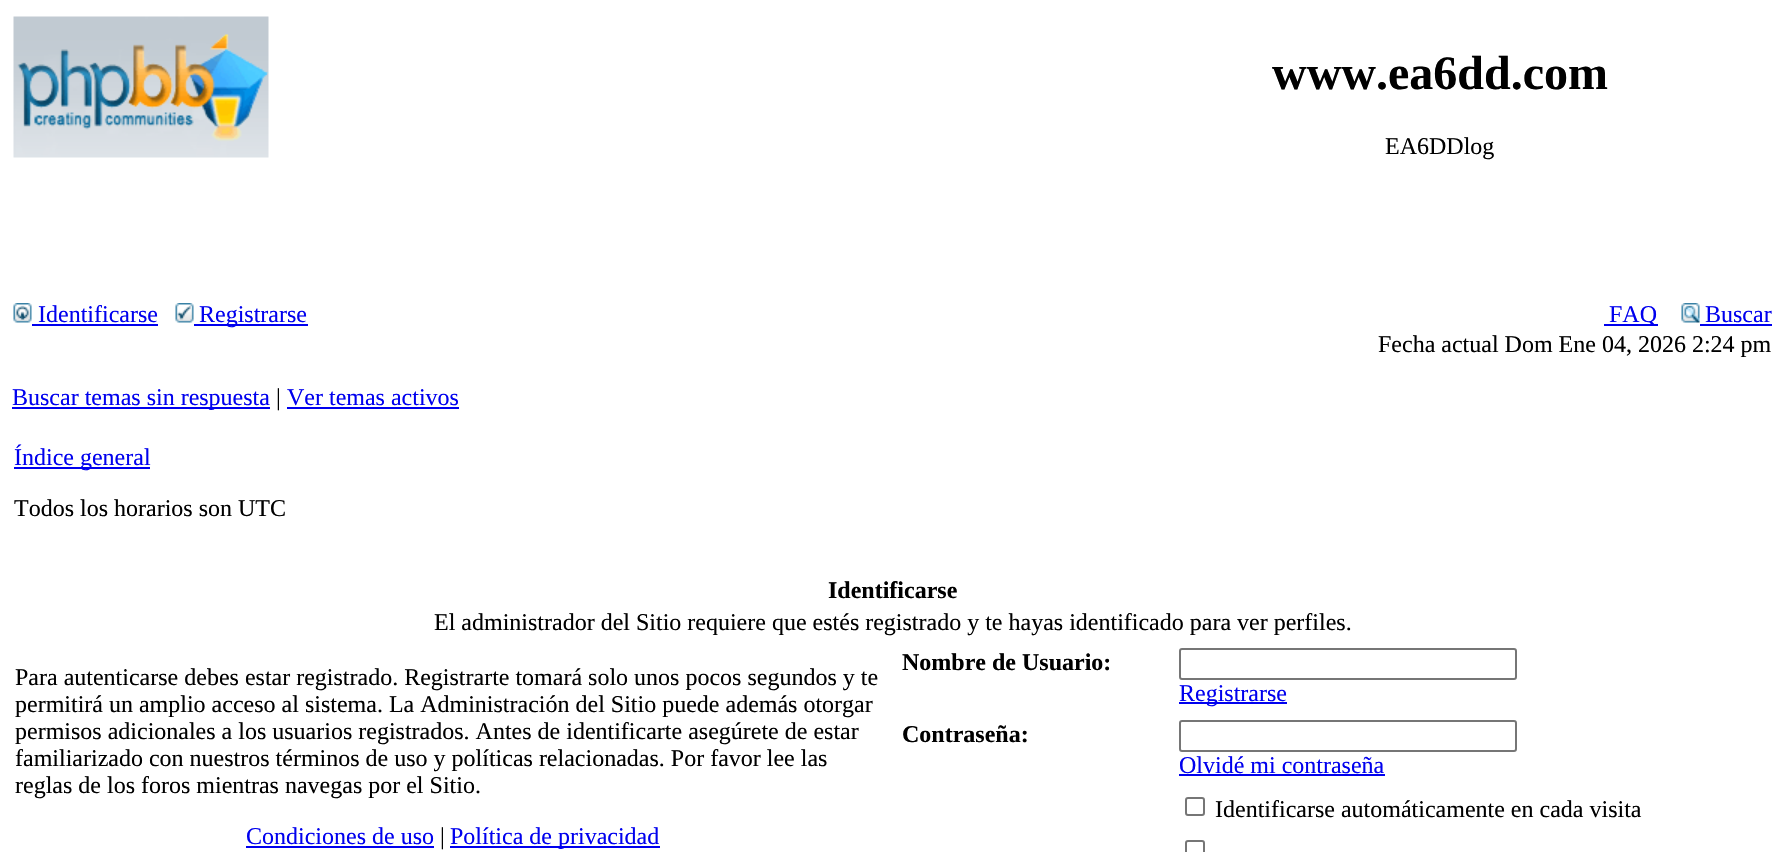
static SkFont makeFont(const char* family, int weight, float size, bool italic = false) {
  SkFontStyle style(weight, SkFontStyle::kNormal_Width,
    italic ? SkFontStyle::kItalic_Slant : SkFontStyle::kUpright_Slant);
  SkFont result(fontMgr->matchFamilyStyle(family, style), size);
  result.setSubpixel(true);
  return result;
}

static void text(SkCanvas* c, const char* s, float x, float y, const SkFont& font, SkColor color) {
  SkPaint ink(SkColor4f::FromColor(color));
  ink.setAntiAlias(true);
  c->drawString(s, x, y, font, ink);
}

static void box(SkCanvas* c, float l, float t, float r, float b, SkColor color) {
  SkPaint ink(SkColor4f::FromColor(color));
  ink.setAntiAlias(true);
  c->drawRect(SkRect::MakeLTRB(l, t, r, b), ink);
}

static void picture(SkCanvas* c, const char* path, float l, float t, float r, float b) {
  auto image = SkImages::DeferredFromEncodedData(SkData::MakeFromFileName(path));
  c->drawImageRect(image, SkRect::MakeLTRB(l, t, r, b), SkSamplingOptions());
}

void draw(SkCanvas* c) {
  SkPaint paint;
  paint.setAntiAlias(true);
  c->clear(0xffffffff);
  picture(c, "img_01.png", 13, 16, 269, 158);
  SkFont face1 = makeFont("Liberation Serif", 700, 48);
  text(c, "www.ea6dd.com", 1272, 89, face1, 0xff000000);
  SkFont face2 = makeFont("Liberation Serif", 400, 24);
  text(c, "EA6DDlog", 1385, 154, face2, 0xff000000);
  picture(c, "img_02.png", 13, 303, 32, 323);
  text(c, "Identificarse", 38, 322, face2, 0xff0000ee);
  box(c, 32, 324, 158, 326, 0xff0000ee);
  picture(c, "img_03.png", 175, 303, 194, 323);
  box(c, 194, 324, 308, 326, 0xff0000ee);
  text(c, "Registrarse", 199, 322, face2, 0xff0000ee);
  box(c, 1604, 324, 1658, 326, 0xff0000ee);
  text(c, "FAQ", 1609, 322, face2, 0xff0000ee);
  picture(c, "img_04.png", 1681, 303, 1700, 323);
  text(c, "Buscar", 1705, 322, face2, 0xff0000ee);
  box(c, 1700, 324, 1772, 326, 0xff0000ee);
  text(c, "Fecha actual Dom Ene 04, 2026 2:24 pm", 1378, 352, face2, 0xff000000);
  box(c, 12, 407, 270, 409, 0xff0000ee);
  text(c, "Buscar temas sin respuesta", 12, 405, face2, 0xff0000ee);
  text(c, "|", 276, 405, face2, 0xff000000);
  text(c, "Ver temas activos", 287, 405, face2, 0xff0000ee);
  box(c, 287, 407, 459, 409, 0xff0000ee);
  box(c, 14, 467, 150, 469, 0xff0000ee);
  text(c, "Índice general", 14, 465, face2, 0xff0000ee);
  text(c, "Todos los horarios son UTC", 14, 516, face2, 0xff000000);
  SkFont face3 = makeFont("Liberation Serif", 700, 24);
  text(c, "Identificarse", 828, 598, face3, 0xff000000);
  text(c, "El administrador del Sitio requiere que estés registrado y te hayas identificado para ver perfiles.", 434, 630, face2, 0xff000000);
  text(c, "Para autenticarse debes estar registrado. Registrarte tomará solo unos pocos segundos y te", 15, 685, face2, 0xff000000);
  text(c, "permitirá un amplio acceso al sistema. La Administración del Sitio puede además otorgar", 15, 712, face2, 0xff000000);
  text(c, "permisos adicionales a los usuarios registrados. Antes de identificarte asegúrete de estar", 15, 739, face2, 0xff000000);
  text(c, "familiarizado con nuestros términos de uso y políticas relacionadas. Por favor lee las", 15, 766, face2, 0xff000000);
  text(c, "reglas de los foros mientras navegas por el Sitio.", 15, 793, face2, 0xff000000);
  text(c, "Condiciones de uso", 246, 844, face2, 0xff0000ee);
  box(c, 246, 846, 434, 848, 0xff0000ee);
  text(c, "|", 440, 844, face2, 0xff000000);
  box(c, 450, 846, 660, 848, 0xff0000ee);
  text(c, "Política de privacidad", 450, 844, face2, 0xff0000ee);
  text(c, "Nombre de Usuario:", 902, 670, face3, 0xff000000);
  paint.setStyle(SkPaint::kStroke_Style);
  paint.setStrokeWidth(2);
  paint.setColor(0xff767676);
  c->drawRoundRect(SkRect::MakeLTRB(1180, 649, 1516, 679), 2, 2, paint);
  box(c, 1179, 702, 1287, 704, 0xff0000ee);
  text(c, "Registrarse", 1179, 701, face2, 0xff0000ee);
  text(c, "Contraseña:", 902, 742, face3, 0xff000000);
  c->drawRoundRect(SkRect::MakeLTRB(1180, 721, 1516, 751), 2, 2, paint);
  text(c, "Olvidé mi contraseña", 1179, 773, face2, 0xff0000ee);
  box(c, 1179, 774, 1385, 776, 0xff0000ee);
  c->drawRoundRect(SkRect::MakeLTRB(1186, 798, 1204, 815), 2, 2, paint);
  text(c, "Identificarse automáticamente en cada visita", 1215, 817, face2, 0xff000000);
  c->drawRoundRect(SkRect::MakeLTRB(1186, 841, 1204, 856), 2, 2, paint);
}
